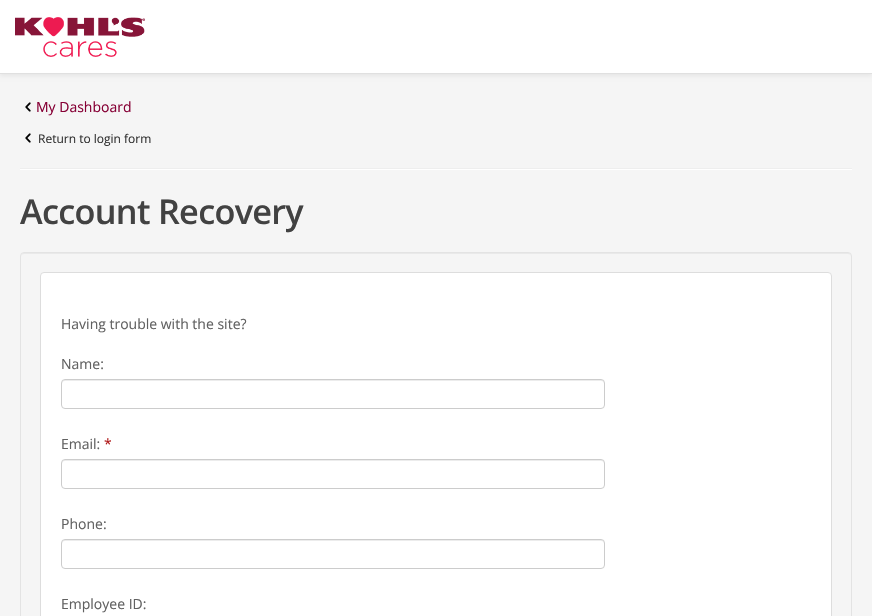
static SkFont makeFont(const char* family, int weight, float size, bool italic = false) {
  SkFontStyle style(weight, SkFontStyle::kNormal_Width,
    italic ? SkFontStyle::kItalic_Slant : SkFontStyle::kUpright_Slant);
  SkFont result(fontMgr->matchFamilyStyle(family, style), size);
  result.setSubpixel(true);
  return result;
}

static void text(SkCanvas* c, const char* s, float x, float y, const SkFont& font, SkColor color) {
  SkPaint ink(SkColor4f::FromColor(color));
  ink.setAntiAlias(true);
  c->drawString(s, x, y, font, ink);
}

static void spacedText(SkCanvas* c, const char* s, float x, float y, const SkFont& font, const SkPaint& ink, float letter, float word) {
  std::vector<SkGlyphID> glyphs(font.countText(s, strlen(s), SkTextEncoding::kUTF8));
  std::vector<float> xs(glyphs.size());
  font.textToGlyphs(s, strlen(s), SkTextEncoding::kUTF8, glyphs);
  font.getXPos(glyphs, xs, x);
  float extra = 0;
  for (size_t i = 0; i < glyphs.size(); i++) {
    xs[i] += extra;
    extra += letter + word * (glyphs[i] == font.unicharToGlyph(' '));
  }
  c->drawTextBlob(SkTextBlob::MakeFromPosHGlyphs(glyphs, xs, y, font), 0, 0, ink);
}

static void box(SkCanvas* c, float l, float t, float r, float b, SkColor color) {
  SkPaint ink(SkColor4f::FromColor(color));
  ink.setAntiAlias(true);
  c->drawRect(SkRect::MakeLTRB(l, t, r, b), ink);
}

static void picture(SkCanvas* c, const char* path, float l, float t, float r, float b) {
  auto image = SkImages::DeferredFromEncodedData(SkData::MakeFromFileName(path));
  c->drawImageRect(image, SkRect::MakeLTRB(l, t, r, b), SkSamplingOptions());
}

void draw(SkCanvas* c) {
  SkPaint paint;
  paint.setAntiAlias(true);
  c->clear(0xfff5f5f5);
  paint.setColor(0x0f000000);
  paint.setMaskFilter(SkMaskFilter::MakeBlur(kNormal_SkBlurStyle, 2));
  c->drawRect(SkRect::MakeLTRB(0, 2, 872, 76), paint);
  paint.setMaskFilter(nullptr);
  box(c, 0, 0, 872, 73, 0xffffffff);
  box(c, 0, 73, 872, 74, 0xffe0e0e0);
  picture(c, "img_01.png", 15, 17, 145, 57);
  picture(c, "img_02.png", 25, 102, 31, 112);
  SkFont face1 = makeFont("Open Sans", 400, 14);
  text(c, "My Dashboard", 36, 112, face1, 0xff860035);
  picture(c, "img_02.png", 25, 133, 31, 143);
  SkFont face2 = makeFont("Open Sans", 400, 12);
  text(c, "Return to login form", 38, 143, face2, 0xff333333);
  box(c, 20, 168, 852, 169, 0xffeeeeee);
  box(c, 20, 169, 852, 170, 0xffffffff);
  SkFont face3 = makeFont("Open Sans", 600, 34.25f);
  paint.setColor(0xff424242);
  spacedText(c, "Account Recovery", 20, 224, face3, paint, -0.7f, 0);
  paint.setColor(0xffe9e9e9);
  c->drawPath(SkPathBuilder().moveTo(24, 254).lineTo(848, 254).cubicTo(850, 254, 851, 255, 851, 257).cubicTo(851, 255, 850, 253, 848, 253).lineTo(24, 253).cubicTo(22, 253, 21, 255, 21, 257).cubicTo(21, 255, 22, 254, 24, 254).close().detach(), paint);
  paint.setStyle(SkPaint::kStroke_Style);
  paint.setStrokeWidth(1);
  paint.setColor(0xffe3e3e3);
  c->drawRoundRect(SkRect::MakeLTRB(20.5f, 252.5f, 851.5f, 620.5f), 3.5f, 3.5f, paint);
  paint.setStyle(SkPaint::kFill_Style);
  paint.setColor(0xffffffff);
  c->drawRoundRect(SkRect::MakeLTRB(40.5f, 272.5f, 831.5f, 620.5f), 3.5f, 3.5f, paint);
  paint.setStyle(SkPaint::kStroke_Style);
  paint.setColor(0xffdddddd);
  c->drawRoundRect(SkRect::MakeLTRB(40.5f, 272.5f, 831.5f, 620.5f), 3.5f, 3.5f, paint);
  text(c, "Having trouble with the site?", 61, 329, face1, 0xff616161);
  text(c, "Name:", 61, 369, face1, 0xff616161);
  paint.setStyle(SkPaint::kFill_Style);
  paint.setColor(0xffececec);
  c->drawPath(SkPathBuilder().moveTo(65, 381).lineTo(601, 381).cubicTo(603, 381, 604, 382, 604, 384).lineTo(604, 383).cubicTo(604, 381, 603, 380, 601, 380).lineTo(65, 380).cubicTo(63, 380, 62, 381, 62, 383).lineTo(62, 384).cubicTo(62, 382, 63, 381, 65, 381).close().detach(), paint);
  paint.setStyle(SkPaint::kStroke_Style);
  paint.setColor(0xffcccccc);
  c->drawRoundRect(SkRect::MakeLTRB(61.5f, 379.5f, 604.5f, 408.5f), 3.5f, 3.5f, paint);
  text(c, "Email:", 61, 449, face1, 0xff616161);
  text(c, "*", 104, 449, face1, 0xffb01919);
  paint.setStyle(SkPaint::kFill_Style);
  paint.setColor(0xffececec);
  c->drawPath(SkPathBuilder().moveTo(65, 461).lineTo(601, 461).cubicTo(603, 461, 604, 462, 604, 464).lineTo(604, 463).cubicTo(604, 461, 603, 460, 601, 460).lineTo(65, 460).cubicTo(63, 460, 62, 461, 62, 463).lineTo(62, 464).cubicTo(62, 462, 63, 461, 65, 461).close().detach(), paint);
  paint.setStyle(SkPaint::kStroke_Style);
  paint.setColor(0xffcccccc);
  c->drawRoundRect(SkRect::MakeLTRB(61.5f, 459.5f, 604.5f, 488.5f), 3.5f, 3.5f, paint);
  text(c, "Phone:", 61, 529, face1, 0xff616161);
  paint.setStyle(SkPaint::kFill_Style);
  paint.setColor(0xffececec);
  c->drawPath(SkPathBuilder().moveTo(65, 541).lineTo(601, 541).cubicTo(603, 541, 604, 542, 604, 544).lineTo(604, 543).cubicTo(604, 541, 603, 540, 601, 540).lineTo(65, 540).cubicTo(63, 540, 62, 541, 62, 543).lineTo(62, 544).cubicTo(62, 542, 63, 541, 65, 541).close().detach(), paint);
  paint.setStyle(SkPaint::kStroke_Style);
  paint.setColor(0xffcccccc);
  c->drawRoundRect(SkRect::MakeLTRB(61.5f, 539.5f, 604.5f, 568.5f), 3.5f, 3.5f, paint);
  text(c, "Employee ID:", 61, 609, face1, 0xff616161);
}
